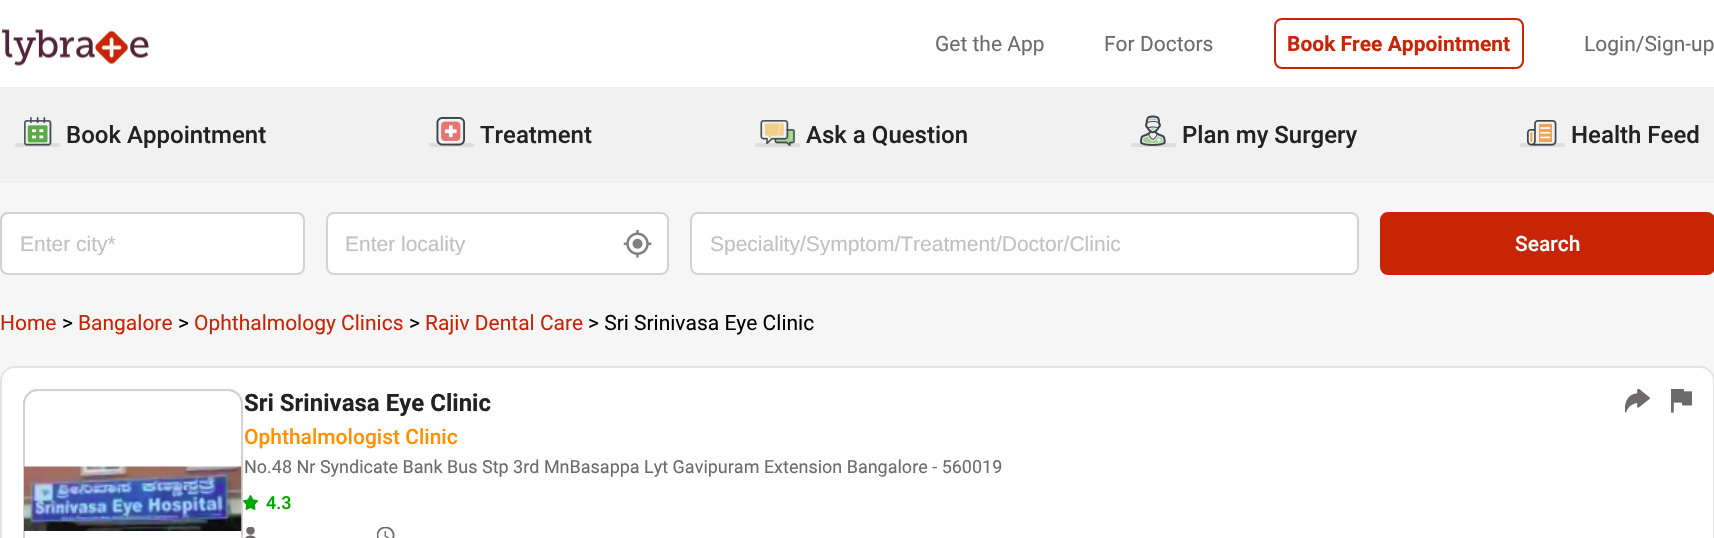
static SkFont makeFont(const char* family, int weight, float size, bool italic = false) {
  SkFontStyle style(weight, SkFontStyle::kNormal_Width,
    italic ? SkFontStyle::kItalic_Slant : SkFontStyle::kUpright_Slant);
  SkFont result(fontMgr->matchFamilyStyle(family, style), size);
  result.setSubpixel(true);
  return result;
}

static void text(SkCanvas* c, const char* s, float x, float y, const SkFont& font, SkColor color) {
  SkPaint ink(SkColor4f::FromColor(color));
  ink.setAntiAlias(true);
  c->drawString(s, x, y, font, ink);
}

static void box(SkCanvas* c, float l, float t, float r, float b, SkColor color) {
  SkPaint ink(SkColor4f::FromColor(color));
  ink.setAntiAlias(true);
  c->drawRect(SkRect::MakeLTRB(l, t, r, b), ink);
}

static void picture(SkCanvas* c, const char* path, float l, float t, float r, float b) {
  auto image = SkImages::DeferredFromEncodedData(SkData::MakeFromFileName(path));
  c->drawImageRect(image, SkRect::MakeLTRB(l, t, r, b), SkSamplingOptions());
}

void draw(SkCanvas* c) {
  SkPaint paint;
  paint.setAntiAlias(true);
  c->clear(0xffeeeeee);
  box(c, 0, 0, 1714, 87, 0xffffffff);
  picture(c, "img_01.png", 2, 29, 149, 66);
  SkFont face1 = makeFont("Roboto", 400, 21);
  text(c, "Get the App", 935, 51, face1, 0xff6c6a6a);
  text(c, "For Doctors", 1104, 51, face1, 0xff6c6a6a);
  paint.setStyle(SkPaint::kStroke_Style);
  paint.setStrokeWidth(2);
  paint.setColor(0xffc82506);
  c->drawRoundRect(SkRect::MakeLTRB(1275, 19, 1523, 68), 7, 7, paint);
  SkFont face2 = makeFont("Roboto", 700, 21);
  text(c, "Book Free Appointment", 1287, 51, face2, 0xffc82506);
  text(c, "Login/Sign-up", 1584, 51, face1, 0xff6c6a6a);
  box(c, 0, 87, 1714, 182, 0xfff1f1f1);
  picture(c, "img_02.png", 15, 117, 60, 147);
  SkFont face3 = makeFont("Roboto", 500, 24);
  text(c, "Book Appointment", 66, 143, face3, 0xff222222);
  picture(c, "img_03.png", 429, 117, 474, 147);
  text(c, "Treatment", 480, 143, face3, 0xff222222);
  picture(c, "img_04.png", 755, 120, 800, 147);
  text(c, "Ask a Question", 806, 143, face3, 0xff222222);
  picture(c, "img_05.png", 1131, 115, 1176, 147);
  text(c, "Plan my Surgery", 1182, 143, face3, 0xff222222);
  picture(c, "img_06.png", 1520, 120, 1565, 147);
  text(c, "Health Feed", 1571, 143, face3, 0xff222222);
  box(c, 0, 183, 1714, 381, 0xfff6f6f6);
  paint.setStyle(SkPaint::kFill_Style);
  paint.setColor(0xffffffff);
  c->drawRoundRect(SkRect::MakeLTRB(1, 213, 304, 274), 7, 7, paint);
  paint.setStyle(SkPaint::kStroke_Style);
  paint.setColor(0xffd3d3d3);
  c->drawRoundRect(SkRect::MakeLTRB(1, 213, 304, 274), 7, 7, paint);
  c->save();
  c->clipRect(SkRect::MakeLTRB(20, 233, 285, 255));
  SkFont face4 = makeFont("Liberation Sans", 400, 21);
  text(c, "Enter city*", 20, 251, face4, 0xffc1c1c1);
  c->restore();
  paint.setStyle(SkPaint::kFill_Style);
  paint.setColor(0xffffffff);
  c->drawRoundRect(SkRect::MakeLTRB(327, 213, 668, 274), 7, 7, paint);
  paint.setStyle(SkPaint::kStroke_Style);
  paint.setColor(0xffd3d3d3);
  c->drawRoundRect(SkRect::MakeLTRB(327, 213, 668, 274), 7, 7, paint);
  c->save();
  c->clipRect(SkRect::MakeLTRB(345, 233, 650, 255));
  text(c, "Enter locality", 345, 251, face4, 0xffc1c1c1);
  c->restore();
  picture(c, "img_07.png", 623, 230, 652, 258);
  paint.setStyle(SkPaint::kFill_Style);
  paint.setColor(0xffffffff);
  c->drawRoundRect(SkRect::MakeLTRB(691, 213, 1358, 274), 7, 7, paint);
  paint.setStyle(SkPaint::kStroke_Style);
  paint.setColor(0xffd3d3d3);
  c->drawRoundRect(SkRect::MakeLTRB(691, 213, 1358, 274), 7, 7, paint);
  c->save();
  c->clipRect(SkRect::MakeLTRB(710, 233, 1340, 255));
  text(c, "Speciality/Symptom/Treatment/Doctor/Clinic", 710, 251, face4, 0xffc1c1c1);
  c->restore();
  paint.setStyle(SkPaint::kFill_Style);
  paint.setColor(0xffc82506);
  c->drawRoundRect(SkRect::MakeLTRB(1381, 213, 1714, 274), 7, 7, paint);
  paint.setStyle(SkPaint::kStroke_Style);
  c->drawRoundRect(SkRect::MakeLTRB(1381, 213, 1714, 274), 7, 7, paint);
  SkFont face5 = makeFont("Roboto", 500, 21);
  text(c, "Search", 1515, 251, face5, 0xffffffff);
  text(c, "Home", 0, 330, face1, 0xffc82506);
  text(c, ">", 62, 330, face1, 0xff000000);
  text(c, "Bangalore", 78, 330, face1, 0xffc82506);
  text(c, ">", 178, 330, face1, 0xff000000);
  text(c, "Ophthalmology Clinics", 194, 330, face1, 0xffc82506);
  text(c, ">", 409, 330, face1, 0xff000000);
  text(c, "Rajiv Dental Care", 425, 330, face1, 0xffc82506);
  text(c, "> Sri Srinivasa Eye Clinic", 588, 330, face1, 0xff000000);
  paint.setStyle(SkPaint::kFill_Style);
  paint.setColor(0xffffffff);
  c->drawRoundRect(SkRect::MakeLTRB(1, 367, 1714, 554), 14, 14, paint);
  paint.setStyle(SkPaint::kStroke_Style);
  paint.setColor(0xffe3e3e3);
  c->drawRoundRect(SkRect::MakeLTRB(1, 367, 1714, 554), 14, 14, paint);
  paint.setColor(0xffd3d3d3);
  c->drawRoundRect(SkRect::MakeLTRB(24, 390, 242, 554), 14, 14, paint);
  c->drawRoundRect(SkRect::MakeLTRB(24, 390, 242, 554), 14, 14, paint);
  picture(c, "img_08.png", 24, 466, 242, 531);
  SkFont face6 = makeFont("Roboto", 700, 24);
  text(c, "Sri Srinivasa Eye Clinic", 244, 411, face6, 0xff222222);
  text(c, "Ophthalmologist Clinic", 244, 444, face5, 0xffff9000);
  SkFont face7 = makeFont("Roboto", 400, 18);
  text(c, "No.48 Nr Syndicate Bank Bus Stp 3rd MnBasappa Lyt Gavipuram Extension Bangalore - 560019", 244, 473, face7, 0xff6c6a6a);
  picture(c, "img_09.png", 243, 495, 258, 510);
  SkFont face8 = makeFont("Roboto", 500, 18);
  text(c, "4.3", 266, 509, face8, 0xff00a600);
  picture(c, "img_10.png", 245, 527, 256, 538);
  picture(c, "img_11.png", 377, 527, 395, 538);
  picture(c, "img_12.png", 1625, 389, 1650, 413);
  picture(c, "img_13.png", 1671, 389, 1692, 413);
}
